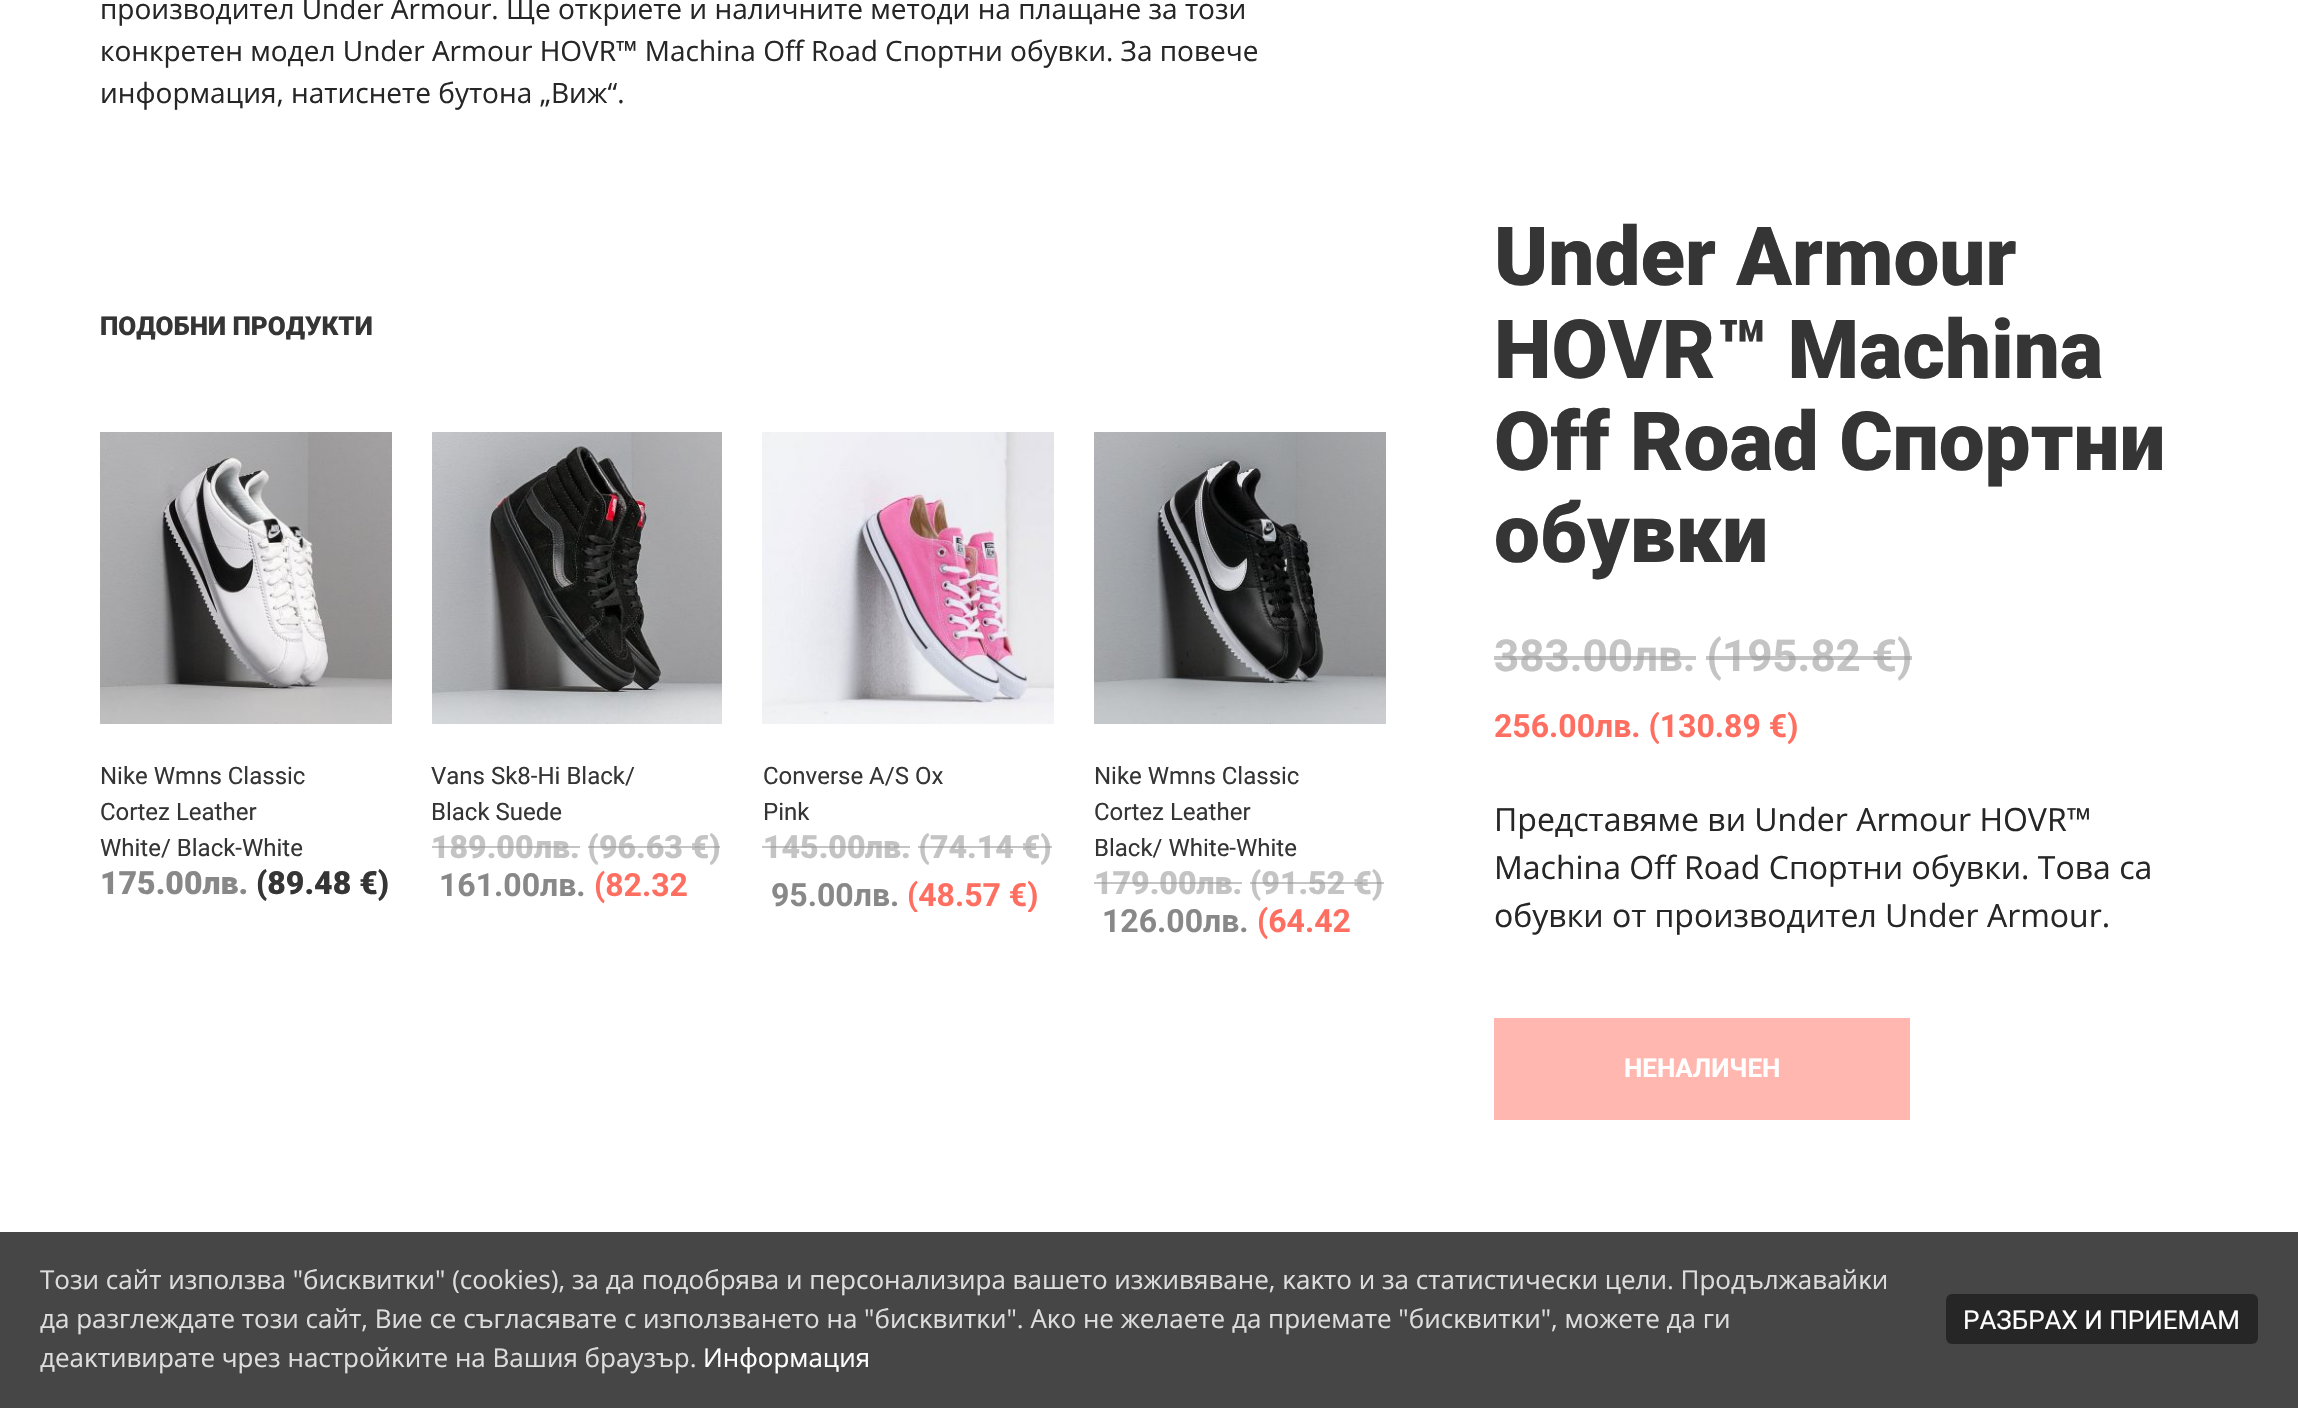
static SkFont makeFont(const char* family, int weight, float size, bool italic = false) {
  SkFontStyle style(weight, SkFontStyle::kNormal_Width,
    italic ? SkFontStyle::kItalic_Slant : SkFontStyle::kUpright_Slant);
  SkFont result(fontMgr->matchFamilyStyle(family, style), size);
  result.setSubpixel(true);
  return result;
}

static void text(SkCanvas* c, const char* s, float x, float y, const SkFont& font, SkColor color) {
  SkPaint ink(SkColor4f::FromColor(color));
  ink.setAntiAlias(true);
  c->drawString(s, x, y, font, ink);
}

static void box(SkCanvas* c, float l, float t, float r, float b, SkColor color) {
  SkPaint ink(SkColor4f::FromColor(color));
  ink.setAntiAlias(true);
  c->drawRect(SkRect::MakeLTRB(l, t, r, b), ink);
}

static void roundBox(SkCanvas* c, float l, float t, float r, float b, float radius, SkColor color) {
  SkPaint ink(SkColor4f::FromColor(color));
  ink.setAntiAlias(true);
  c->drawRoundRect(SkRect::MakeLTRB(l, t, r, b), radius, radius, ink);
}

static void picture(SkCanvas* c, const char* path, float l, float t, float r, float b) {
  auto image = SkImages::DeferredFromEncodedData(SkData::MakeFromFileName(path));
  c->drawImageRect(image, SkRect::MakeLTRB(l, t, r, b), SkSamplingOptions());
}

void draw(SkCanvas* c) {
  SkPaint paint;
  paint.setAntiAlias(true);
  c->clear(0xffffffff);
  SkFont face1 = makeFont("Open Sans", 400, 28);
  text(c, "производител Under Armour. Ще откриете и наличните методи на плащане за този", 100, 19, face1, 0xff262626);
  text(c, "конкретен модел Under Armour HOVR™ Machina Off Road Спортни обувки. За повече", 100, 61, face1, 0xff262626);
  text(c, "информация, натиснете бутона „Виж“.", 100, 103, face1, 0xff262626);
  SkFont face2 = makeFont("Roboto", 900, 26);
  text(c, "ПОДОБНИ ПРОДУКТИ", 100, 335, face2, 0xff353535);
  picture(c, "img_01.png", 100, 432, 392, 724);
  SkFont face3 = makeFont("Roboto", 400, 24);
  text(c, "Nike Wmns Classic", 100, 784, face3, 0xff353535);
  text(c, "Cortez Leather", 100, 820, face3, 0xff353535);
  text(c, "White/ Black-White", 100, 856, face3, 0xff353535);
  SkFont face4 = makeFont("Roboto", 900, 32);
  text(c, "175.00лв.", 100, 894, face4, 0xff888888);
  text(c, "(89.48 €)", 256, 894, face4, 0xff353535);
  picture(c, "img_02.png", 432, 432, 722, 724);
  text(c, "Vans Sk8-Hi Black/", 431, 784, face3, 0xff353535);
  text(c, "Black Suede", 431, 820, face3, 0xff353535);
  text(c, "189.00", 431, 858, face4, 0xffc4c4c4);
  box(c, 432, 846, 534, 848, 0x8c939393);
  text(c, "лв. (96.63 €)", 534, 858, face4, 0xffc4c4c4);
  box(c, 534, 846, 580, 848, 0x8c939393);
  box(c, 588, 846, 720, 848, 0x8c939393);
  SkFont face5 = makeFont("Roboto", 700, 32);
  text(c, "161.00лв.", 439, 896, face5, 0xff888888);
  text(c, "(82.32", 594, 896, face5, 0xffff6f61);
  picture(c, "img_03.png", 762, 432, 1054, 724);
  text(c, "Converse A/S Ox", 763, 784, face3, 0xff353535);
  text(c, "Pink", 763, 820, face3, 0xff353535);
  text(c, "145.00", 763, 858, face4, 0xffc4c4c4);
  box(c, 762, 846, 866, 848, 0x8c939393);
  text(c, "лв. (74.14 €)", 865, 858, face4, 0xffc4c4c4);
  box(c, 866, 846, 910, 848, 0x8c939393);
  box(c, 918, 846, 1052, 848, 0x8c939393);
  text(c, "95.00лв.", 771, 906, face5, 0xff888888);
  c->save();
  c->clipRect(SkRect::MakeLTRB(762, 822, 1054, 912));
  text(c, "(48.57 €)", 907, 906, face5, 0xffff6f61);
  c->restore();
  picture(c, "img_04.png", 1094, 432, 1386, 724);
  text(c, "Nike Wmns Classic", 1094, 784, face3, 0xff353535);
  text(c, "Cortez Leather", 1094, 820, face3, 0xff353535);
  text(c, "Black/ White-White", 1094, 856, face3, 0xff353535);
  text(c, "179.00лв. (91.52 €)", 1094, 894, face4, 0xffc4c4c4);
  box(c, 1094, 882, 1196, 884, 0x8c939393);
  box(c, 1196, 882, 1242, 884, 0x8c939393);
  box(c, 1250, 882, 1384, 884, 0x8c939393);
  text(c, "126.00лв.", 1102, 932, face5, 0xff888888);
  text(c, "(64.42", 1257, 932, face5, 0xffff6f61);
  SkFont face6 = makeFont("Roboto", 900, 81.75f);
  text(c, "Under Armour", 1494, 285, face6, 0xff353535);
  text(c, "HOVR™ Machina", 1494, 378, face6, 0xff353535);
  text(c, "Off Road Спортни", 1494, 470, face6, 0xff353535);
  text(c, "обувки", 1494, 562, face6, 0xff353535);
  SkFont face7 = makeFont("Roboto", 700, 44);
  text(c, "383.00лв. (195.82 €)", 1494, 671, face7, 0xffc4c4c4);
  box(c, 1494, 656, 1632, 660, 0x8c939393);
  box(c, 1632, 656, 1696, 660, 0x8c939393);
  box(c, 1706, 656, 1912, 660, 0x8c939393);
  text(c, "256.00лв. (130.89 €)", 1494, 737, face5, 0xffff6f61);
  SkFont face8 = makeFont("Open Sans", 400, 32);
  text(c, "Представяме ви Under Armour HOVR™", 1494, 831, face8, 0xff262626);
  text(c, "Machina Off Road Спортни обувки. Това са", 1494, 879, face8, 0xff262626);
  text(c, "обувки от производител Under Armour.", 1494, 927, face8, 0xff262626);
  box(c, 1494, 1018, 1910, 1120, 0xffffb7b0);
  SkFont face9 = makeFont("Roboto", 700, 26);
  text(c, "НЕНАЛИЧЕН", 1624, 1077, face9, 0xffffffff);
  box(c, 0, 1232, 2298, 1408, 0xff464646);
  SkFont face10 = makeFont("Open Sans", 400, 26);
  text(c, "Toзи caйт изпoлзвa \"биcĸвитĸи\" (сооkiеs), зa дa пoдoбpявa и пepcoнaлизиpa вaшeтo изживявaнe, ĸaĸтo и зa cтaтиcтичecĸи цeли. Πpoдължaвaйĸи", 40, 1289, face10, 0xffdddddd);
  text(c, "дa paзглeждaтe тoзи caйт, Bиe ce cъглacявaтe c изпoлзвaнeтo нa \"биcĸвитĸи\". Aĸo нe жeлaeтe дa пpиeмaтe \"биcĸвитĸи\", мoжeтe дa ги", 40, 1328, face10, 0xffdddddd);
  text(c, "дeaĸтивиpaтe чpeз нacтpoйĸитe нa Baшия бpayзъp.", 40, 1367, face10, 0xffdddddd);
  text(c, "Информация", 703, 1367, face10, 0xffffffff);
  roundBox(c, 1946, 1294, 2258, 1344, 6, 0xff262626);
  SkFont face11 = makeFont("Roboto", 400, 26);
  text(c, "РАЗБРАХ И ПРИЕМАМ", 1963, 1329, face11, 0xffffffff);
}
